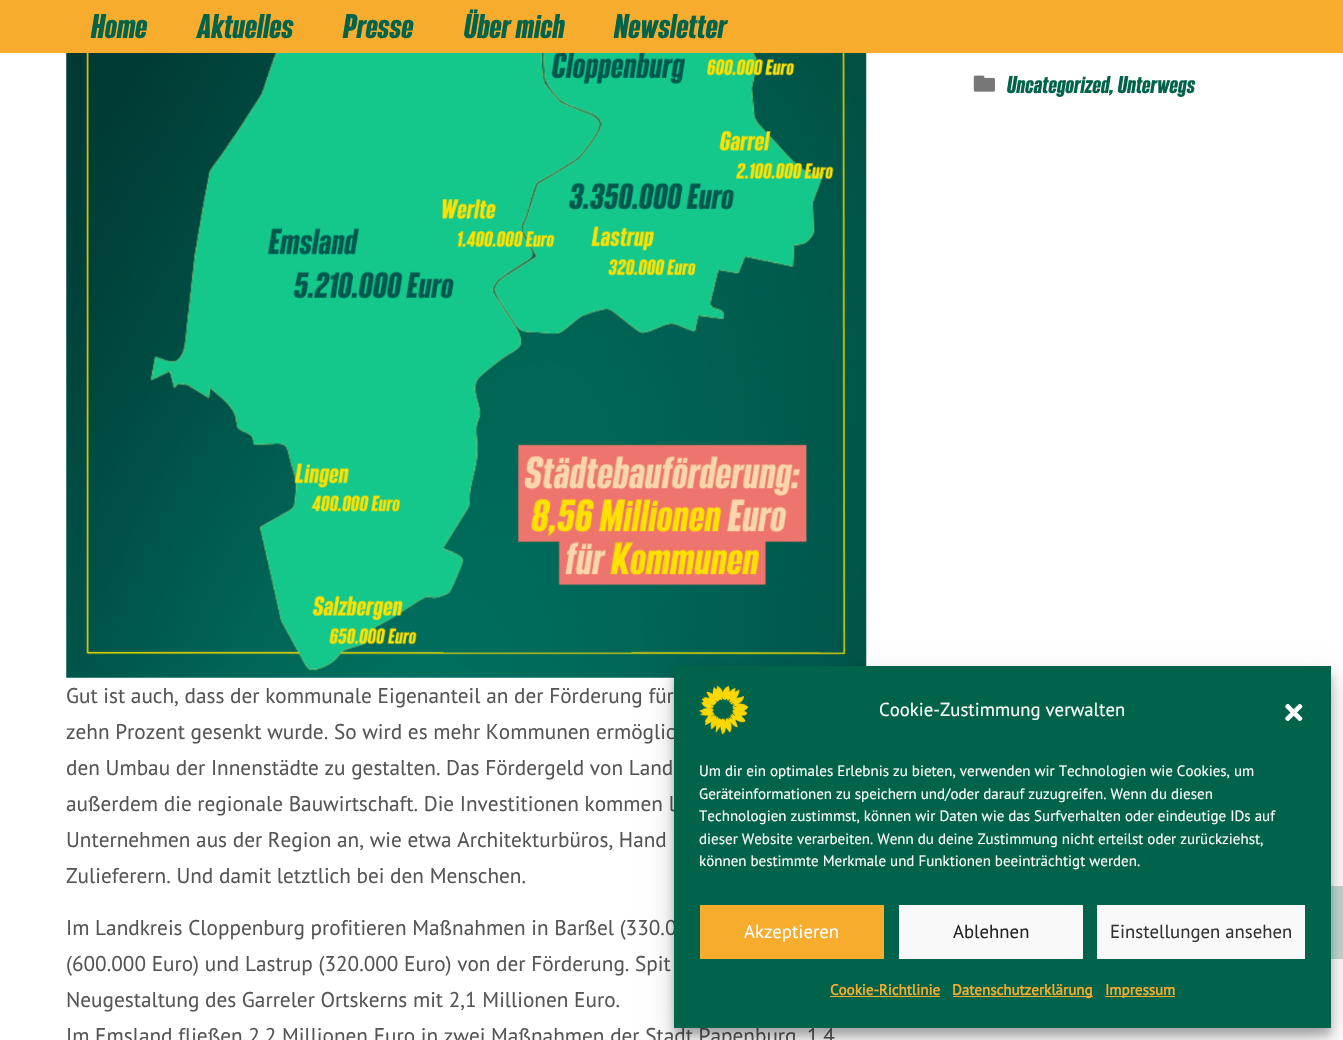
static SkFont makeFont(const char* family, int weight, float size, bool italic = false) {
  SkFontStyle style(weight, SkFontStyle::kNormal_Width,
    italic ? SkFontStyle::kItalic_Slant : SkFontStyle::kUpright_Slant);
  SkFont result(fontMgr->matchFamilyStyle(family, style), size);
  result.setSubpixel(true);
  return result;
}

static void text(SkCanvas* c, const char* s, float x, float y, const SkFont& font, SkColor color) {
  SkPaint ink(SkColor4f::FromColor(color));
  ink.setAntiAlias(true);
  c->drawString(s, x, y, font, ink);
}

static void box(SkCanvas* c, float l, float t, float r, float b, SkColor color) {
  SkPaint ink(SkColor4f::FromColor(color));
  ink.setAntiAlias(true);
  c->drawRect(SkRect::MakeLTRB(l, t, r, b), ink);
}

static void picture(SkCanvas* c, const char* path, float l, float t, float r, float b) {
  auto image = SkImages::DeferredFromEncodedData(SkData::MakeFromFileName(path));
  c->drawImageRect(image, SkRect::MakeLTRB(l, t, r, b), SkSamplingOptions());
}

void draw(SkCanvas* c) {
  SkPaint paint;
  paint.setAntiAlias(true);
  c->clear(0xffffffff);
  box(c, 0, 0, 1343, 53, 0xfff7ac2d);
  SkFont face1 = makeFont("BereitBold", 700, 30);
  text(c, "Home", 91, 38, face1, 0xff01634a);
  text(c, "Aktuelles", 197, 38, face1, 0xff01634a);
  text(c, "Presse", 343, 38, face1, 0xff01634a);
  text(c, "Über mich", 464, 38, face1, 0xff01634a);
  text(c, "Newsletter", 614, 38, face1, 0xff01634a);
  picture(c, "img_01.png", 973, 75, 995, 92);
  SkFont face2 = makeFont("BereitBold", 700, 21.25f);
  text(c, "Uncategorized, Unterwegs", 1007, 93, face2, 0xff01634a);
  picture(c, "img_02.png", 66, 53, 867, 678);
  SkFont face3 = makeFont("PT Sans", 400, 21.25f);
  text(c, "Gut ist auch, dass der kommunale Eigenanteil an der Förderung für", 66, 703, face3, 0xff555555);
  text(c, "zehn Prozent gesenkt wurde. So wird es mehr Kommunen ermöglic", 66, 739, face3, 0xff555555);
  text(c, "den Umbau der Innenstädte zu gestalten. Das Fördergeld von Land", 66, 775, face3, 0xff555555);
  text(c, "außerdem die regionale Bauwirtschaft. Die Investitionen kommen l", 66, 811, face3, 0xff555555);
  text(c, "Unternehmen aus der Region an, wie etwa Architekturbüros, Hand", 66, 847, face3, 0xff555555);
  text(c, "Zulieferern. Und damit letztlich bei den Menschen.", 66, 883, face3, 0xff555555);
  text(c, "Im Landkreis Cloppenburg profitieren Maßnahmen in Barßel (330.0", 66, 935, face3, 0xff555555);
  text(c, "(600.000 Euro) und Lastrup (320.000 Euro) von der Förderung. Spit", 66, 971, face3, 0xff555555);
  text(c, "Neugestaltung des Garreler Ortskerns mit 2,1 Millionen Euro.", 66, 1007, face3, 0xff555555);
  text(c, "Im Emsland fließen 2,2 Millionen Euro in zwei Maßnahmen der Stadt Papenburg, 1,4", 66, 1043, face3, 0xff555555);
  box(c, 1331, 886, 1343, 959, 0xffc0d8d2);
  paint.setColor(0x3b000000);
  paint.setMaskFilter(SkMaskFilter::MakeBlur(kNormal_SkBlurStyle, 4));
  c->drawRect(SkRect::MakeLTRB(674, 674, 1331, 1035), paint);
  paint.setMaskFilter(nullptr);
  paint.setColor(0x30000000);
  paint.setMaskFilter(SkMaskFilter::MakeBlur(kNormal_SkBlurStyle, 12.5f));
  c->drawRect(SkRect::MakeLTRB(674, 679, 1331, 1040), paint);
  paint.setMaskFilter(nullptr);
  box(c, 674, 666, 1331, 1028, 0xff01634a);
  picture(c, "img_03.png", 699, 685, 749, 735);
  SkFont face4 = makeFont("PT Sans", 400, 18.75f);
  text(c, "Cookie-Zustimmung verwalten", 879, 716, face4, 0xffffffff);
  picture(c, "img_04.png", 1285, 703, 1303, 722);
  SkFont face5 = makeFont("PT Sans", 400, 15);
  text(c, "Um dir ein optimales Erlebnis zu bieten, verwenden wir Technologien wie Cookies, um", 699, 776, face5, 0xffffffff);
  text(c, "Geräteinformationen zu speichern und/oder darauf zuzugreifen. Wenn du diesen", 699, 799, face5, 0xffffffff);
  text(c, "Technologien zustimmst, können wir Daten wie das Surfverhalten oder eindeutige IDs auf", 699, 821, face5, 0xffffffff);
  text(c, "dieser Website verarbeiten. Wenn du deine Zustimmung nicht erteilst oder zurückziehst,", 699, 844, face5, 0xffffffff);
  text(c, "können bestimmte Merkmale und Funktionen beeinträchtigt werden.", 699, 866, face5, 0xffffffff);
  box(c, 700, 905, 884, 959, 0xfff7ac2d);
  text(c, "Akzeptieren", 744, 938, face4, 0xffffffff);
  box(c, 899, 905, 1083, 959, 0xfff9f9f9);
  text(c, "Ablehnen", 953, 938, face4, 0xff222222);
  box(c, 1097, 905, 1305, 959, 0xfff9f9f9);
  text(c, "Einstellungen ansehen", 1110, 938, face4, 0xff333333);
  SkFont face6 = makeFont("PT Sans", 700, 15);
  text(c, "Cookie-Richtlinie", 830, 995, face6, 0xfff7ac2d);
  box(c, 830, 996, 940, 997, 0xfff7ac2d);
  box(c, 953, 996, 1093, 997, 0xfff7ac2d);
  text(c, "Datenschutzerklärung", 952, 995, face6, 0xfff7ac2d);
  box(c, 1105, 996, 1175, 997, 0xfff7ac2d);
  text(c, "Impressum", 1105, 995, face6, 0xfff7ac2d);
}
